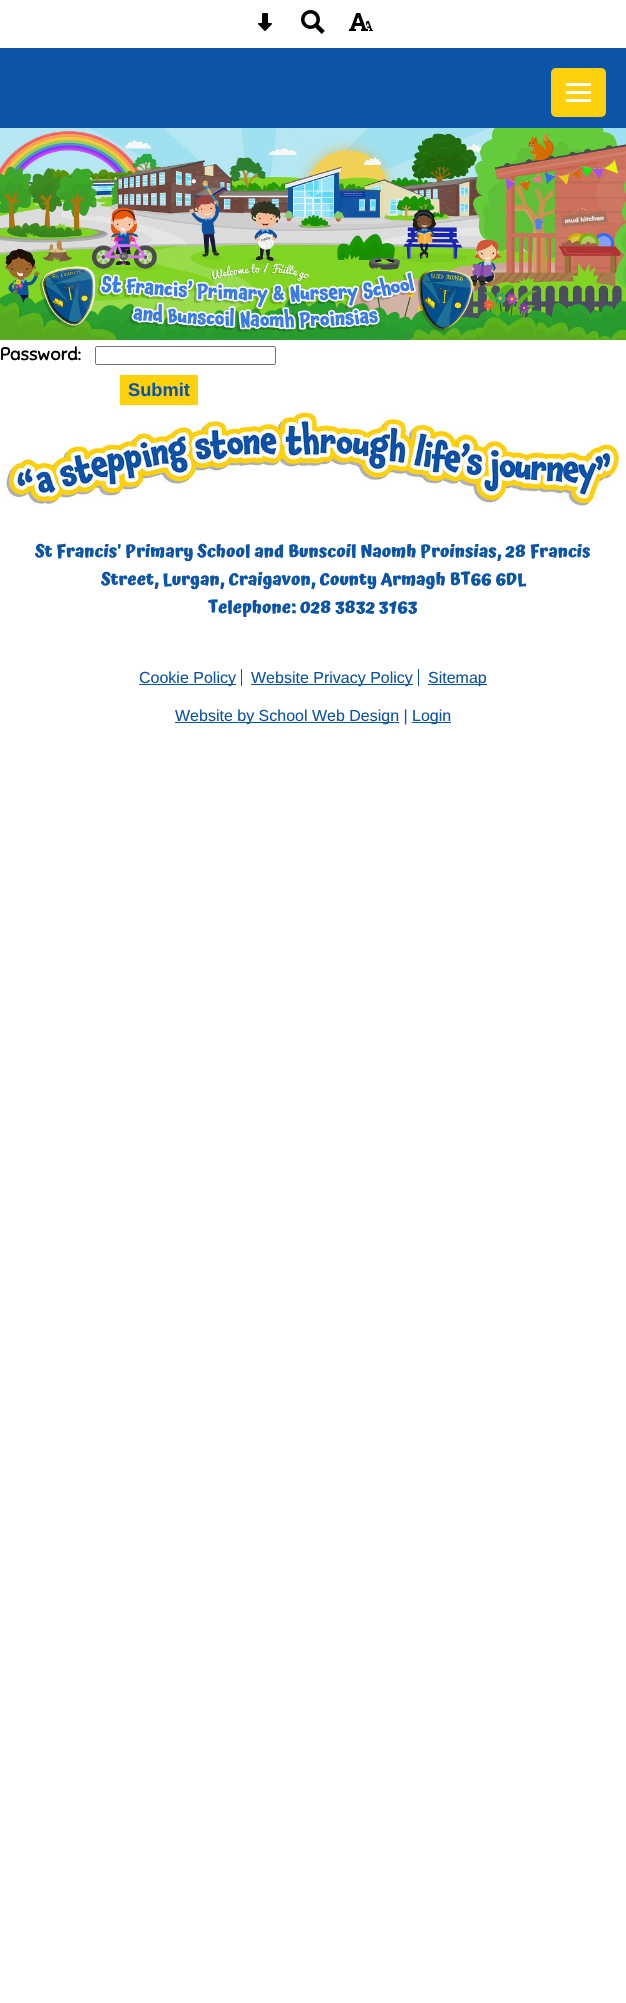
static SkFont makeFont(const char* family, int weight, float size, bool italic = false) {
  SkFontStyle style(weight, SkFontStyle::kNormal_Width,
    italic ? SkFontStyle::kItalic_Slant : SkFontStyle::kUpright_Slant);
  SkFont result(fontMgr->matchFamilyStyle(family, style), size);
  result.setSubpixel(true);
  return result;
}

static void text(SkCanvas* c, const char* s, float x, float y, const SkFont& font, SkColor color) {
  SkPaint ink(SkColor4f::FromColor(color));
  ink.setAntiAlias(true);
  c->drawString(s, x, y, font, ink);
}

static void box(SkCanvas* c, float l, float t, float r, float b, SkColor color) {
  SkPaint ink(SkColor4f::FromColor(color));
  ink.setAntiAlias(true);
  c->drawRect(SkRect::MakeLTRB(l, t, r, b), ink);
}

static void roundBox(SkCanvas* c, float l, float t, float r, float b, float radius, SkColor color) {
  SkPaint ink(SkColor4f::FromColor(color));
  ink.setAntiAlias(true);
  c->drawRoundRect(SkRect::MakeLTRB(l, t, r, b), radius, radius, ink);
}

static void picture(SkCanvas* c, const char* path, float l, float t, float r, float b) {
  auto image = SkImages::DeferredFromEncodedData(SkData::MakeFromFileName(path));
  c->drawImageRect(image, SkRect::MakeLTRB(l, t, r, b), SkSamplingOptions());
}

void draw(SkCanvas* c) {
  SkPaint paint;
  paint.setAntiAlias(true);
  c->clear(0xffffffff);
  picture(c, "img_01.png", 258, 13, 272, 31);
  picture(c, "img_02.png", 301, 10, 325, 34);
  picture(c, "img_03.png", 349, 13, 373, 31);
  box(c, 0, 48, 626, 128, 0xff0c54a8);
  roundBox(c, 551, 68, 606, 117, 5, 0xffffd10c);
  roundBox(c, 566, 83, 591, 86, 1.5f, 0xffffffff);
  roundBox(c, 566, 91, 591, 94, 1.5f, 0xffffffff);
  roundBox(c, 566, 99, 591, 102, 1.5f, 0xffffffff);
  picture(c, "img_04.png", 0, 128, 626, 340);
  SkFont face1 = makeFont("Sniglet", 400, 18.25f);
  text(c, "Password:", 0, 360, face1, 0xff000000);
  paint.setStyle(SkPaint::kStroke_Style);
  paint.setStrokeWidth(1);
  paint.setColor(0xff767676);
  c->drawRoundRect(SkRect::MakeLTRB(95.5f, 346.5f, 275.5f, 364.5f), 1.5f, 1.5f, paint);
  box(c, 120, 375, 198, 405, 0xffffd10c);
  SkFont face2 = makeFont("Liberation Sans", 700, 18.25f);
  text(c, "Submit", 128, 396, face2, 0xff0c54a8);
  picture(c, "img_05.png", 5, 410, 622, 508);
  SkFont face3 = makeFont("Atma", 700, 17.15f);
  text(c, "St Francis' Primary School and Bunscoil Naomh Proinsias, 28 Francis", 35, 557, face3, 0xff0c54a8);
  text(c, "Street, Lurgan, Craigavon, County Armagh BT66 6DL", 101, 585, face3, 0xff0c54a8);
  text(c, "Telephone: 028 3832 3163", 208, 613, face3, 0xff0c54a8);
  box(c, 139, 684, 236, 685, 0xff0c53a3);
  SkFont face4 = makeFont("Liberation Sans", 400, 16);
  text(c, "Cookie Policy", 139, 683, face4, 0xff0c54a8);
  box(c, 241, 669, 242, 686, 0xff0c53a3);
  box(c, 251, 684, 413, 685, 0xff0c53a3);
  text(c, "Website Privacy Policy", 251, 683, face4, 0xff0c54a8);
  box(c, 418, 669, 419, 686, 0xff0c53a3);
  box(c, 428, 684, 487, 685, 0xff0c53a3);
  text(c, "Sitemap", 428, 683, face4, 0xff0c54a8);
  box(c, 175, 722, 399, 723, 0xff0c53a3);
  text(c, "Website by School Web Design |", 175, 721, face4, 0xff0c54a8);
  box(c, 412, 722, 451, 723, 0xff0c53a3);
  text(c, "Login", 412, 721, face4, 0xff0c54a8);
}
